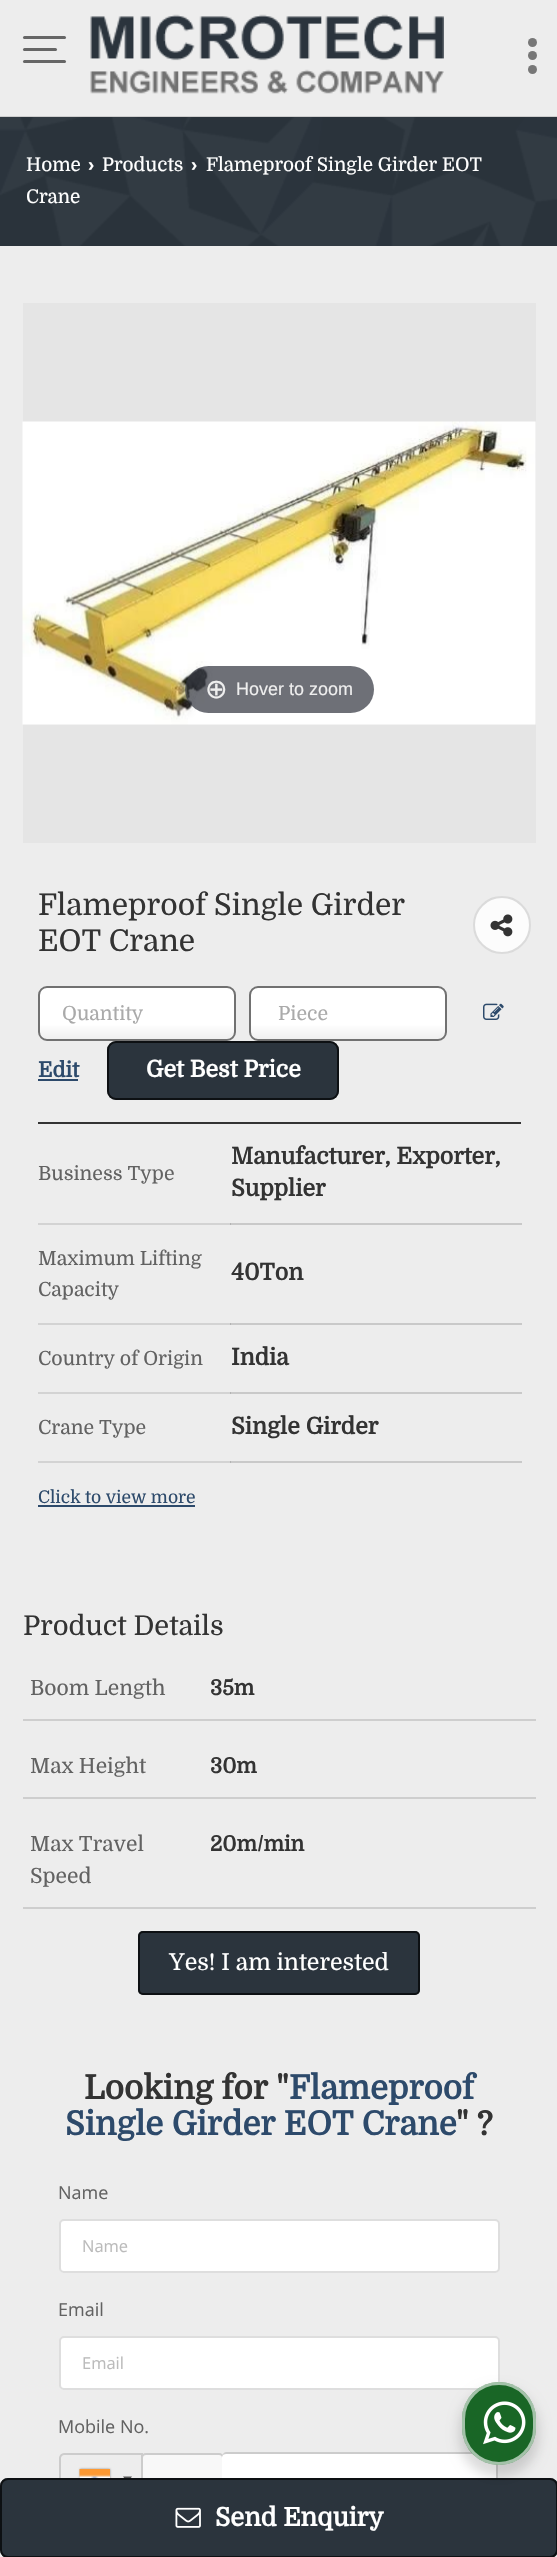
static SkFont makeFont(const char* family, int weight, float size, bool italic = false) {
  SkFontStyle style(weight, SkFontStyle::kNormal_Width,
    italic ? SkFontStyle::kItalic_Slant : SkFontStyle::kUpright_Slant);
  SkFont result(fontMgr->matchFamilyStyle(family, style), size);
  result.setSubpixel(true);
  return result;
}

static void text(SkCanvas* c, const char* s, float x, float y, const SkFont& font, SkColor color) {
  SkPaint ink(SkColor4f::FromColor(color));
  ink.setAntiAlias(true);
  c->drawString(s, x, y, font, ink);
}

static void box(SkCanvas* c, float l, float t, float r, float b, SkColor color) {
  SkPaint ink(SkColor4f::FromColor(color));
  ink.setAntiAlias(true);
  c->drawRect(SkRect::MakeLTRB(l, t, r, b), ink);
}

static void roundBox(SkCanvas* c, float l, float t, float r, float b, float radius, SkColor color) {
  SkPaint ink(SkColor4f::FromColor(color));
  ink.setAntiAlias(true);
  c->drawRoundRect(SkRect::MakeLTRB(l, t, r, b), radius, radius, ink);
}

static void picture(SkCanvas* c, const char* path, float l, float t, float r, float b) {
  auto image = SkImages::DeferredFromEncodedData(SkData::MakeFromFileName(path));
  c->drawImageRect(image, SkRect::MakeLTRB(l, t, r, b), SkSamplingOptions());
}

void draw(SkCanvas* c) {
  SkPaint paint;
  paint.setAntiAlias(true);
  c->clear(0xffededed);
  box(c, 38, 1461, 231, 1463, 0xffd3d3d3);
  box(c, 38, 1392, 231, 1394, 0xffd3d3d3);
  box(c, 38, 1323, 231, 1325, 0xffd3d3d3);
  box(c, 38, 1223, 231, 1225, 0xffd3d3d3);
  box(c, 0, 116, 557, 117, 0xffcecece);
  roundBox(c, 23, 36, 66, 39, 1.5f, 0xff666666);
  roundBox(c, 23, 48, 57, 51, 1.5f, 0xff666666);
  roundBox(c, 23, 60, 66, 63, 1.5f, 0xff666666);
  picture(c, "img_01.png", 90, 14, 444, 94);
  paint.setColor(0xff777777);
  c->drawCircle(532.5f, 55.5f, 4.5f, paint);
  c->drawCircle(532.5f, 42.5f, 4.5f, paint);
  c->drawCircle(532.5f, 69.5f, 4.5f, paint);
  box(c, 0, 117, 557, 246, 0xff2b343d);
  picture(c, "img_02.png", 0, 117, 557, 246);
  SkFont face1 = makeFont("Domine", 400, 18.9f);
  text(c, "Home", 26, 171, face1, 0xffffffff);
  SkFont face2 = makeFont("Liberation Sans", 700, 18.9f);
  text(c, "›", 88, 171, face2, 0xffffffff);
  text(c, "Products", 102, 171, face1, 0xffffffff);
  text(c, "›", 191, 171, face2, 0xffffffff);
  text(c, "Flameproof Single Girder EOT", 206, 171, face1, 0xffffffff);
  text(c, "Crane", 26, 203, face1, 0xffffffff);
  box(c, 23, 303, 536, 843, 0xffe5e5e5);
  picture(c, "img_03.png", 22, 421, 536, 725);
  roundBox(c, 185, 666, 374, 713, 23.5f, 0xb331333d);
  SkFont face3 = makeFont("DejaVu Sans", 400, 27);
  text(c, "⊕", 205, 698, face3, 0xffeeeeee);
  SkFont face4 = makeFont("Liberation Sans", 400, 18);
  text(c, "Hover to zoom", 236, 695, face4, 0xffeeeeee);
  SkFont face5 = makeFont("Domine", 400, 30);
  text(c, "Flameproof Single Girder", 38, 915, face5, 0xff333333);
  text(c, "EOT Crane", 38, 951, face5, 0xff333333);
  paint.setColor(0xfffcfcfc);
  c->drawCircle(502, 925, 29, paint);
  paint.setStyle(SkPaint::kStroke_Style);
  paint.setStrokeWidth(2);
  paint.setColor(0x21000000);
  c->drawCircle(502, 925, 28, paint);
  picture(c, "img_04.png", 490, 914, 513, 937);
  c->save();
  c->clipPath(SkPathBuilder().moveTo(47, 986).lineTo(227, 986).cubicTo(232, 986, 236, 990, 236, 995).lineTo(236, 1032).cubicTo(236, 1037, 232, 1041, 227, 1041).lineTo(47, 1041).cubicTo(42, 1041, 38, 1037, 38, 1032).lineTo(38, 995).cubicTo(38, 990, 42, 986, 47, 986).close().detach(), true);
  paint.setStyle(SkPaint::kFill_Style);
  {
    const SkColor colors[] = {0xffffffff, 0xffeeeeee};
    const float stops[] = {0.7f, 1};
    const SkPoint ends[] = {{137, 987}, {137, 1040}};
    paint.setShader(SkGradientShader::MakeLinear(ends, colors, stops, 2, SkTileMode::kClamp));
    paint.setAlpha(255);
  }
  c->drawRect(SkRect::MakeLTRB(38, 987, 236, 1040), paint);
  c->restore();
  paint.setStyle(SkPaint::kStroke_Style);
  paint.setShader(nullptr);
  paint.setColor(0xff717171);
  c->drawRoundRect(SkRect::MakeLTRB(39, 987, 235, 1040), 8, 8, paint);
  SkFont face6 = makeFont("Domine", 400, 19.5f);
  text(c, "Quantity", 62, 1020, face6, 0xffaaaaaa);
  c->save();
  c->clipPath(SkPathBuilder().moveTo(258, 986).lineTo(438, 986).cubicTo(443, 986, 447, 990, 447, 995).lineTo(447, 1032).cubicTo(447, 1037, 443, 1041, 438, 1041).lineTo(258, 1041).cubicTo(253, 1041, 249, 1037, 249, 1032).lineTo(249, 995).cubicTo(249, 990, 253, 986, 258, 986).close().detach(), true);
  paint.setStyle(SkPaint::kFill_Style);
  {
    const SkColor colors[] = {0xffffffff, 0xffeeeeee};
    const float stops[] = {0.7f, 1};
    const SkPoint ends[] = {{348, 987}, {348, 1040}};
    paint.setShader(SkGradientShader::MakeLinear(ends, colors, stops, 2, SkTileMode::kClamp));
    paint.setAlpha(255);
  }
  c->drawRect(SkRect::MakeLTRB(249, 987, 447, 1040), paint);
  c->restore();
  paint.setStyle(SkPaint::kStroke_Style);
  paint.setShader(nullptr);
  paint.setColor(0xff717171);
  c->drawRoundRect(SkRect::MakeLTRB(250, 987, 446, 1040), 8, 8, paint);
  text(c, "Piece", 278, 1020, face6, 0xffaaaaaa);
  picture(c, "img_05.png", 483, 1003, 504, 1020);
  SkFont face7 = makeFont("Domine", 700, 21);
  text(c, "Edit", 38, 1077, face7, 0xff2d4a6b);
  box(c, 38, 1079, 78, 1081, 0xff2d4a6b);
  roundBox(c, 107, 1041, 339, 1100, 9, 0xff2b343d);
  paint.setColor(0xb3000000);
  c->drawRoundRect(SkRect::MakeLTRB(108, 1042, 338, 1099), 8, 8, paint);
  SkFont face8 = makeFont("Domine", 700, 23.1f);
  text(c, "Get Best Price", 146, 1077, face8, 0xffffffff);
  box(c, 38, 1122, 521, 1124, 0xff333333);
  text(c, "Business Type", 38, 1180, face6, 0xff626262);
  box(c, 230, 1223, 522, 1225, 0xffc9c9c9);
  box(c, 230, 1223, 231, 1225, 0xffb3b3b3);
  text(c, "Manufacturer, Exporter,", 231, 1164, face8, 0xff333333);
  text(c, "Supplier", 231, 1196, face8, 0xff333333);
  text(c, "Maximum Lifting", 38, 1265, face6, 0xff626262);
  text(c, "Capacity", 38, 1296, face6, 0xff626262);
  box(c, 230, 1323, 522, 1325, 0xffc9c9c9);
  box(c, 230, 1323, 231, 1325, 0xffb3b3b3);
  text(c, "40Ton", 231, 1280, face8, 0xff333333);
  text(c, "Country of Origin", 38, 1365, face6, 0xff626262);
  box(c, 230, 1392, 522, 1394, 0xffc9c9c9);
  box(c, 230, 1392, 231, 1394, 0xffb3b3b3);
  text(c, "India", 231, 1365, face8, 0xff333333);
  text(c, "Crane Type", 38, 1434, face6, 0xff626262);
  box(c, 230, 1461, 522, 1463, 0xffc9c9c9);
  box(c, 230, 1461, 231, 1463, 0xffb3b3b3);
  text(c, "Single Girder", 231, 1434, face8, 0xff333333);
  SkFont face9 = makeFont("Domine", 400, 17.5f);
  text(c, "Click to view more", 38, 1503, face9, 0xff2d4a6b);
  box(c, 38, 1505, 195, 1507, 0xff2d4a6b);
  paint.setColor(0xffcccccc);
  c->drawPath(SkPathBuilder().moveTo(64, 2454).lineTo(142, 2454).lineTo(142, 2506).lineTo(64, 2506).cubicTo(62, 2506, 60, 2504, 60, 2502).lineTo(60, 2458).cubicTo(60, 2456, 62, 2454, 64, 2454).close().detach(), paint);
  paint.setStyle(SkPaint::kFill_Style);
  paint.setColor(0xff888888);
  paint.setMaskFilter(SkMaskFilter::MakeBlur(kNormal_SkBlurStyle, 1));
  c->drawRect(SkRect::MakeLTRB(80, 2469, 110, 2490), paint);
  paint.setMaskFilter(nullptr);
  paint.setColor(0xff555555);
  c->drawPath(SkPathBuilder().moveTo(123, 2476.5f).lineTo(132, 2476.5f).lineTo(127.5f, 2482.5f).close().detach(), paint);
  paint.setColor(0xfff8f8f8);
  c->drawRoundRect(SkRect::MakeLTRB(142, 2454, 223, 2506), 4, 4, paint);
  paint.setStyle(SkPaint::kStroke_Style);
  paint.setColor(0xffcccccc);
  c->drawRoundRect(SkRect::MakeLTRB(142, 2454, 223, 2506), 4, 4, paint);
  paint.setStyle(SkPaint::kFill_Style);
  paint.setColor(0xffffffff);
  c->drawPath(SkPathBuilder().moveTo(226, 2454).lineTo(494, 2454).cubicTo(495, 2454, 496, 2455, 496, 2457).lineTo(496, 2502).cubicTo(496, 2504, 495, 2505, 494, 2505).lineTo(226, 2505).cubicTo(224, 2505, 222, 2504, 222, 2502).lineTo(222, 2457).cubicTo(222, 2455, 224, 2454, 226, 2454).close().detach(), paint);
  paint.setColor(0xffcccccc);
  c->drawPath(SkPathBuilder(SkPathFillType::kEvenOdd).moveTo(226, 2452).lineTo(494, 2452).cubicTo(496, 2452, 498, 2455, 498, 2457).lineTo(498, 2502).cubicTo(498, 2504, 496, 2506, 494, 2506).lineTo(226, 2506).cubicTo(224, 2506, 222, 2504, 222, 2502).lineTo(222, 2457).cubicTo(222, 2455, 224, 2452, 226, 2452).close().moveTo(226, 2454).lineTo(494, 2454).cubicTo(495, 2454, 496, 2455, 496, 2457).lineTo(496, 2502).cubicTo(496, 2504, 495, 2505, 494, 2505).lineTo(226, 2505).cubicTo(224, 2505, 222, 2504, 222, 2502).lineTo(222, 2457).cubicTo(222, 2455, 224, 2454, 226, 2454).close().detach(), paint);
  roundBox(c, 0, 2478, 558, 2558, 8, 0xff2b343d);
  paint.setStyle(SkPaint::kStroke_Style);
  paint.setColor(0xb3000000);
  c->drawRoundRect(SkRect::MakeLTRB(1, 2479, 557, 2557), 7, 7, paint);
  picture(c, "img_06.png", 175, 2507, 201, 2528);
  SkFont face10 = makeFont("Domine", 700, 25.5f);
  text(c, "Send Enquiry", 215, 2526, face10, 0xffffffff);
  SkFont face11 = makeFont("Domine", 400, 27.25f);
  text(c, "Product Details", 23, 1635, face11, 0xff333333);
  box(c, 23, 1719, 536, 1721, 0xffcecece);
  SkFont face12 = makeFont("Domine", 400, 21);
  text(c, "Boom Length", 30, 1695, face12, 0xff626262);
  text(c, "35m", 210, 1695, face7, 0xff333333);
  box(c, 23, 1797, 536, 1799, 0xffcecece);
  text(c, "Max Height", 30, 1773, face12, 0xff626262);
  text(c, "30m", 210, 1773, face7, 0xff333333);
  box(c, 23, 1907, 536, 1909, 0xffcecece);
  text(c, "Max Travel", 30, 1851, face12, 0xff626262);
  text(c, "Speed", 30, 1883, face12, 0xff626262);
  text(c, "20m/min", 210, 1851, face7, 0xff333333);
  roundBox(c, 138, 1931, 420, 1995, 5, 0xff2b343d);
  c->drawRoundRect(SkRect::MakeLTRB(139, 1932, 419, 1994), 4, 4, paint);
  SkFont face13 = makeFont("Domine", 400, 23.1f);
  text(c, "Yes! I am interested", 169, 1970, face13, 0xffffffff);
  SkFont face14 = makeFont("Domine", 700, 33);
  text(c, "Looking for \"", 84, 2099, face14, 0xff333333);
  text(c, "Flameproof", 289, 2099, face14, 0xff2d4a6b);
  text(c, "Single Girder EOT Crane", 65, 2135, face14, 0xff2d4a6b);
  text(c, "\" ?", 456, 2135, face14, 0xff333333);
  SkFont face15 = makeFont("Open Sans", 400, 18);
  text(c, "Name", 58, 2199, face15, 0xff626262);
  roundBox(c, 59, 2219, 500, 2273, 5, 0xffffffff);
  paint.setColor(0x21000000);
  c->drawRoundRect(SkRect::MakeLTRB(60, 2220, 499, 2272), 4, 4, paint);
  SkFont face16 = makeFont("Open Sans", 400, 16.5f);
  text(c, "Name", 82, 2252, face16, 0xffbbbbbb);
  text(c, "Email", 58, 2316, face15, 0xff626262);
  roundBox(c, 59, 2336, 500, 2390, 5, 0xffffffff);
  c->drawRoundRect(SkRect::MakeLTRB(60, 2337, 499, 2389), 4, 4, paint);
  text(c, "Email", 82, 2369, face16, 0xffbbbbbb);
  text(c, "Mobile No.", 58, 2433, face15, 0xff626262);
  picture(c, "img_07.png", 79, 2469, 110, 2478);
  paint.setStyle(SkPaint::kFill_Style);
  paint.setColor(0x24000000);
  paint.setMaskFilter(SkMaskFilter::MakeBlur(kNormal_SkBlurStyle, 6));
  c->drawRoundRect(SkRect::MakeLTRB(459, 2388, 539, 2477), 40, 40, paint);
  paint.setMaskFilter(nullptr);
  roundBox(c, 462, 2382, 536, 2465, 37, 0xff196626);
  paint.setStyle(SkPaint::kStroke_Style);
  paint.setStrokeWidth(3);
  paint.setColor(0x99ffffff);
  c->drawRoundRect(SkRect::MakeLTRB(463.5f, 2383.5f, 534.5f, 2463.5f), 35.5f, 35.5f, paint);
  picture(c, "img_08.png", 483, 2401, 526, 2445);
}
